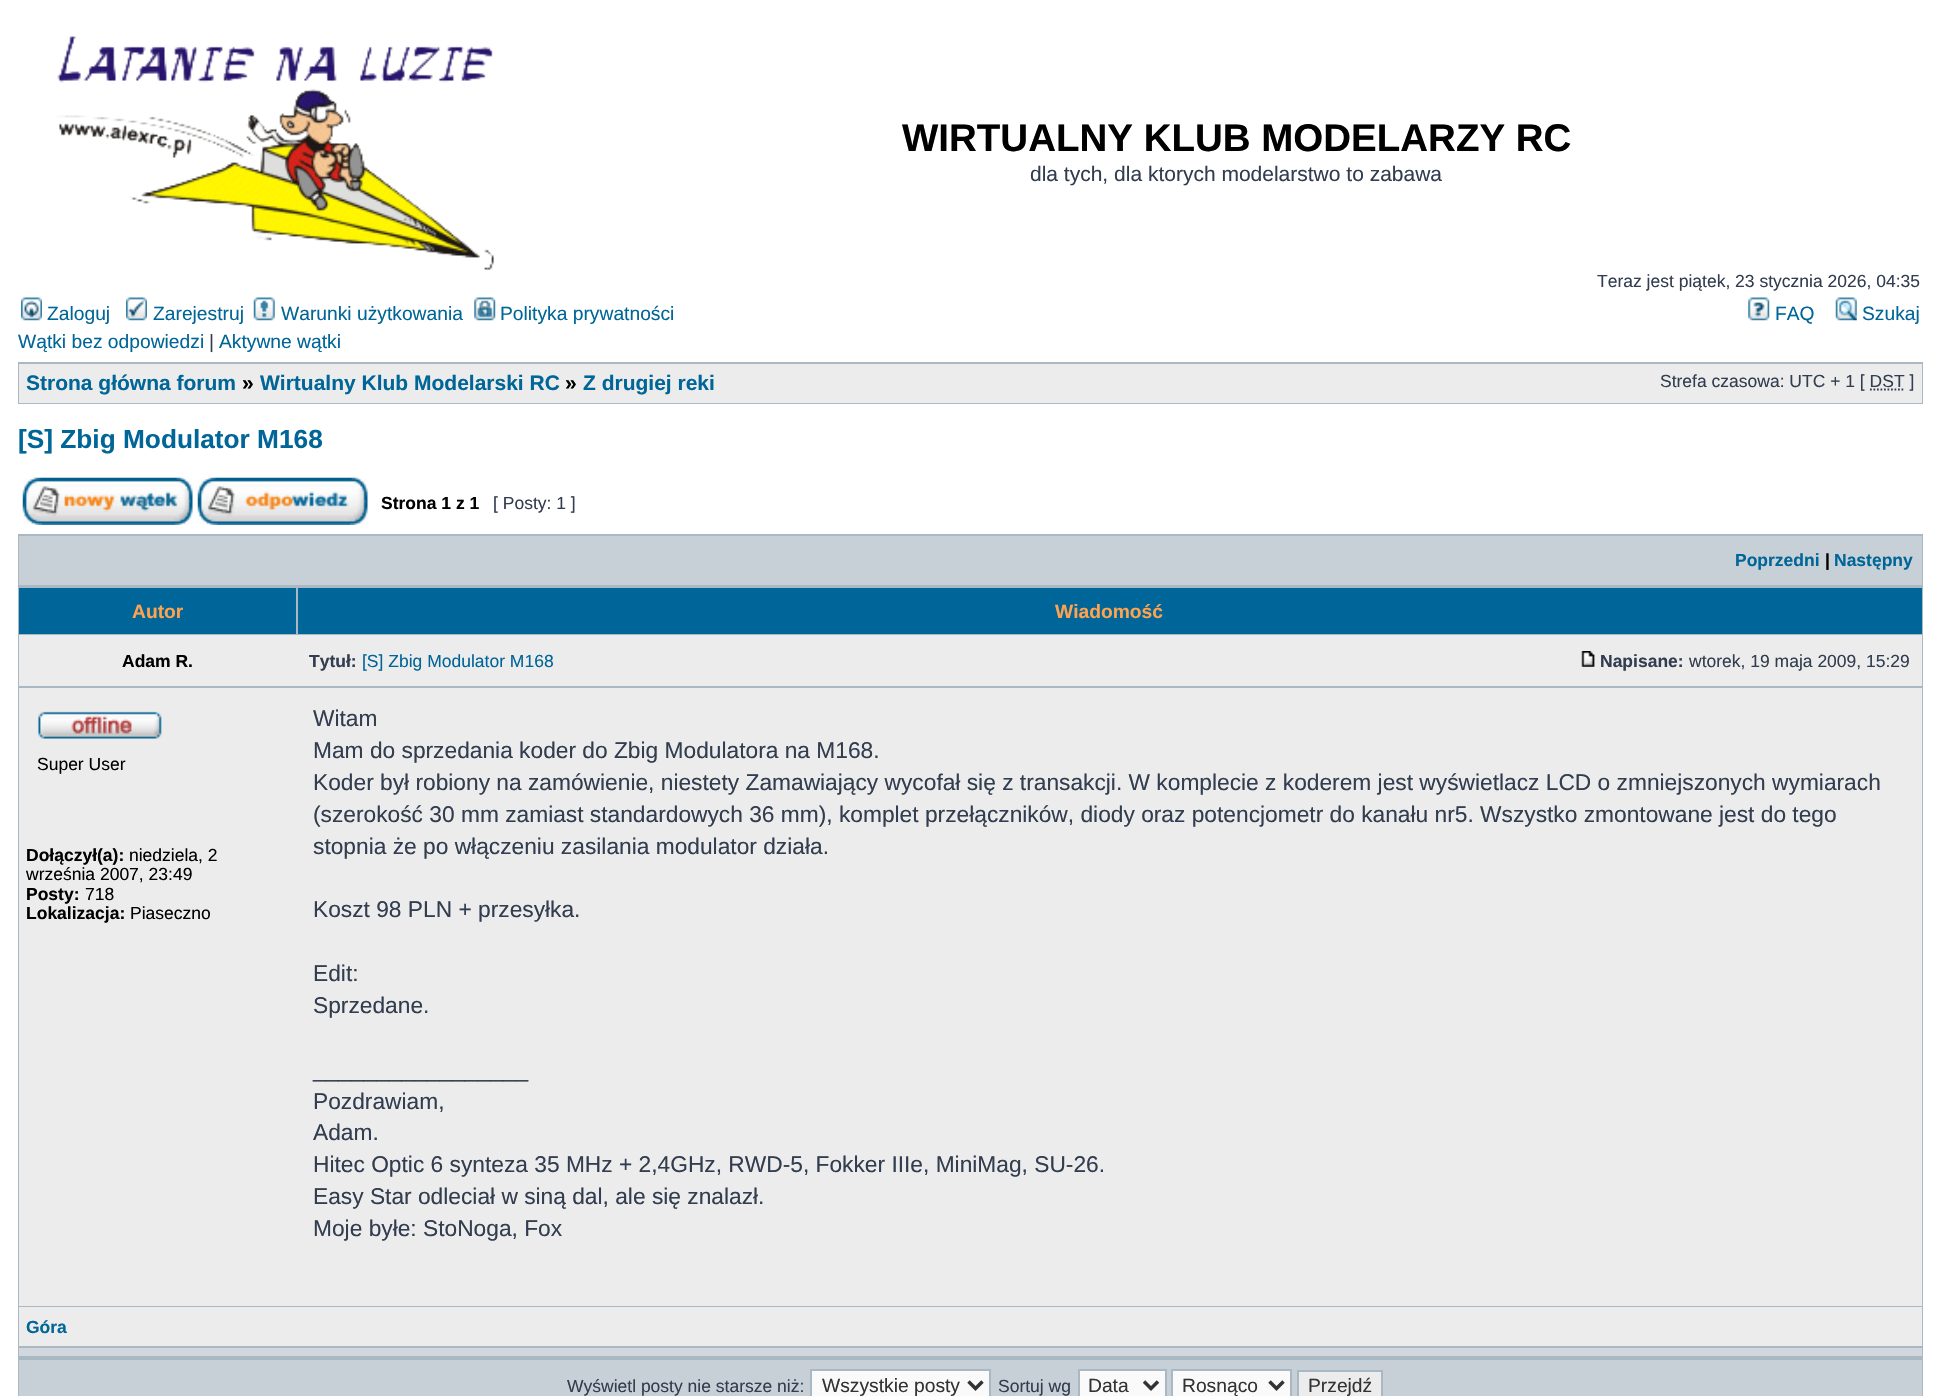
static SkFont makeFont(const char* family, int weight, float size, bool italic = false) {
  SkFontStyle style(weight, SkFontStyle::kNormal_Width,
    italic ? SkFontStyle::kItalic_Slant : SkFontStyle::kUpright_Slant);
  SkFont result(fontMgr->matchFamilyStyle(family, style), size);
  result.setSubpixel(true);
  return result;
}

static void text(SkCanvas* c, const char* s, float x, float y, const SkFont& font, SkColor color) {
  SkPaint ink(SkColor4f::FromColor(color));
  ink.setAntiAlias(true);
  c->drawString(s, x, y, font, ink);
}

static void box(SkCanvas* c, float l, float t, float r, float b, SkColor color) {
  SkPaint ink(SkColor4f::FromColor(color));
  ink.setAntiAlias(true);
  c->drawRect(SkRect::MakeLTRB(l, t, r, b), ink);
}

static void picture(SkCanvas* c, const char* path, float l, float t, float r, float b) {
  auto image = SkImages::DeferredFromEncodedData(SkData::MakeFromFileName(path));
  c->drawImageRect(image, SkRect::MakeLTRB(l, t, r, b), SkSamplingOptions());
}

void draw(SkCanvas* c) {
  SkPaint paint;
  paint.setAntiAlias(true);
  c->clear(0xffffffff);
  picture(c, "img_01.png", 56, 35, 494, 271);
  SkFont face1 = makeFont("Liberation Sans", 700, 38.5f);
  text(c, "WIRTUALNY KLUB MODELARZY RC", 902, 151, face1, 0xff000000);
  SkFont face2 = makeFont("Liberation Sans", 400, 21);
  text(c, "dla tych, dla ktorych modelarstwo to zabawa", 1030, 181, face2, 0xff323d4f);
  SkFont face3 = makeFont("Liberation Sans", 400, 17.5f);
  text(c, "Teraz jest piątek, 23 stycznia 2026, 04:35", 1597, 287, face3, 0xff323d4f);
  picture(c, "img_02.png", 21, 297, 42, 321);
  SkFont face4 = makeFont("Liberation Sans", 400, 19.25f);
  text(c, "Zaloguj", 47, 320, face4, 0xff006597);
  picture(c, "img_03.png", 126, 297, 147, 321);
  text(c, "Zarejestruj", 153, 320, face4, 0xff006597);
  picture(c, "img_04.png", 253, 297, 275, 321);
  text(c, "Warunki użytkowania", 281, 320, face4, 0xff006597);
  picture(c, "img_05.png", 474, 297, 496, 321);
  text(c, "Polityka prywatności", 500, 320, face4, 0xff006597);
  picture(c, "img_06.png", 1748, 297, 1770, 321);
  text(c, "FAQ", 1775, 320, face4, 0xff006597);
  picture(c, "img_07.png", 1835, 297, 1857, 321);
  text(c, "Szukaj", 1862, 320, face4, 0xff006597);
  text(c, "Wątki bez odpowiedzi", 18, 348, face4, 0xff006597);
  text(c, "|", 209, 348, face4, 0xff323d4f);
  text(c, "Aktywne wątki", 219, 348, face4, 0xff006597);
  box(c, 18, 362, 1923, 404, 0xffa9b8c2);
  box(c, 19, 364, 1922, 403, 0xffececec);
  SkFont face5 = makeFont("Liberation Sans", 700, 21);
  text(c, "Strona główna forum", 26, 390, face5, 0xff006597);
  text(c, "»", 242, 390, face5, 0xff000000);
  text(c, "Wirtualny Klub Modelarski RC", 260, 390, face5, 0xff006597);
  text(c, "»", 565, 390, face5, 0xff000000);
  text(c, "Z drugiej reki", 583, 390, face5, 0xff006597);
  text(c, "Strefa czasowa: UTC + 1 [ DST ]", 1660, 387, face3, 0xff323d4f);
  paint.setStyle(SkPaint::kStroke_Style);
  paint.setStrokeWidth(1.8f);
  paint.setColor(0xff323d4f);
  paint.setPathEffect(SkDashPathEffect::Make({{1.75f, 1.75f}}, 0));
  c->drawPath(SkPathBuilder().moveTo(1870, 389.5f).lineTo(1905, 389.5f).detach(), paint);
  paint.setPathEffect(nullptr);
  SkFont face6 = makeFont("Liberation Sans", 700, 26.25f);
  text(c, "[S] Zbig Modulator M168", 18, 448, face6, 0xff006597);
  picture(c, "img_08.png", 22, 477, 193, 525);
  picture(c, "img_09.png", 197, 477, 368, 525);
  SkFont face7 = makeFont("Liberation Sans", 700, 17.5f);
  text(c, "Strona 1 z 1", 381, 509, face7, 0xff000000);
  text(c, "[ Posty: 1 ]", 493, 509, face3, 0xff323d4f);
  box(c, 18, 534, 1923, 1396, 0xffa9b8c2);
  box(c, 19, 536, 1922, 585, 0xffc7d0d7);
  text(c, "Poprzedni", 1735, 566, face7, 0xff006597);
  text(c, "|", 1825, 566, face7, 0xff000000);
  text(c, "Następny", 1834, 566, face7, 0xff006597);
  box(c, 19, 588, 296, 634, 0xff006699);
  SkFont face8 = makeFont("Liberation Sans", 700, 19.25f);
  text(c, "Autor", 132, 618, face8, 0xffffa34f);
  box(c, 298, 588, 1922, 634, 0xff006699);
  text(c, "Wiadomość", 1055, 618, face8, 0xffffa34f);
  box(c, 19, 635, 1922, 686, 0xffececec);
  text(c, "Adam R.", 122, 667, face7, 0xff000000);
  text(c, "Tytuł:", 309, 667, face7, 0xff323d4f);
  text(c, "[S] Zbig Modulator M168", 362, 667, face3, 0xff006597);
  picture(c, "img_10.png", 1581, 651, 1595, 667);
  text(c, "Napisane:", 1600, 667, face7, 0xff323d4f);
  text(c, "wtorek, 19 maja 2009, 15:29", 1689, 667, face3, 0xff323d4f);
  box(c, 19, 688, 1922, 1306, 0xffececec);
  picture(c, "img_11.png", 38, 711, 162, 739);
  text(c, "Super User", 37, 770, face3, 0xff000000);
  text(c, "Dołączył(a):", 26, 861, face7, 0xff000000);
  text(c, "niedziela, 2", 129, 861, face3, 0xff000000);
  text(c, "września 2007, 23:49", 26, 880, face3, 0xff000000);
  text(c, "Posty:", 26, 900, face7, 0xff000000);
  text(c, "718", 85, 900, face3, 0xff000000);
  text(c, "Lokalizacja:", 26, 919, face7, 0xff000000);
  text(c, "Piaseczno", 130, 919, face3, 0xff000000);
  SkFont face9 = makeFont("Liberation Sans", 400, 22.75f);
  text(c, "Witam", 313, 726, face9, 0xff323d4f);
  text(c, "Mam do sprzedania koder do Zbig Modulatora na M168.", 313, 758, face9, 0xff323d4f);
  text(c, "Koder był robiony na zamówienie, niestety Zamawiający wycofał się z transakcji. W komplecie z koderem jest wyświetlacz LCD o zmniejszonych wymiarach", 313, 790, face9, 0xff323d4f);
  text(c, "(szerokość 30 mm zamiast standardowych 36 mm), komplet przełączników, diody oraz potencjometr do kanału nr5. Wszystko zmontowane jest do tego", 313, 822, face9, 0xff323d4f);
  text(c, "stopnia że po włączeniu zasilania modulator działa.", 313, 854, face9, 0xff323d4f);
  text(c, "Koszt 98 PLN + przesyłka.", 313, 917, face9, 0xff323d4f);
  text(c, "Edit:", 313, 981, face9, 0xff323d4f);
  text(c, "Sprzedane.", 313, 1013, face9, 0xff323d4f);
  text(c, "_________________", 313, 1077, face9, 0xff323d4f);
  text(c, "Pozdrawiam,", 313, 1109, face9, 0xff323d4f);
  text(c, "Adam.", 313, 1140, face9, 0xff323d4f);
  text(c, "Hitec Optic 6 synteza 35 MHz + 2,4GHz, RWD-5, Fokker IIIe, MiniMag, SU-26.", 313, 1172, face9, 0xff323d4f);
  text(c, "Easy Star odleciał w siną dal, ale się znalazł.", 313, 1204, face9, 0xff323d4f);
  text(c, "Moje byłe: StoNoga, Fox", 313, 1236, face9, 0xff323d4f);
  box(c, 19, 1307, 1922, 1346, 0xffececec);
  text(c, "Góra", 26, 1333, face7, 0xff006597);
  box(c, 19, 1348, 1922, 1356, 0xffd1d7dc);
  box(c, 19, 1360, 1922, 1396, 0xffc7d0d7);
  text(c, "Wyświetl posty nie starsze niż:", 567, 1392, face3, 0xff323d4f);
  paint.setStyle(SkPaint::kFill_Style);
  paint.setColor(0xfffafafa);
  c->drawRect(SkRect::MakeLTRB(811, 1370, 990, 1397), paint);
  paint.setStyle(SkPaint::kStroke_Style);
  paint.setStrokeWidth(2);
  paint.setColor(0xffa9b8c2);
  c->drawRect(SkRect::MakeLTRB(811, 1370, 990, 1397), paint);
  paint.setStrokeWidth(3.5f);
  paint.setColor(0xff333333);
  c->drawPath(SkPathBuilder().moveTo(968.5f, 1381.5f).lineTo(975.5f, 1388.5f).lineTo(982.5f, 1381.5f).detach(), paint);
  text(c, "Wszystkie posty", 822, 1392, face4, 0xff333333);
  text(c, "Sortuj wg", 998, 1392, face3, 0xff323d4f);
  paint.setStyle(SkPaint::kFill_Style);
  paint.setColor(0xfffafafa);
  c->drawRect(SkRect::MakeLTRB(1079, 1370, 1166, 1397), paint);
  paint.setStyle(SkPaint::kStroke_Style);
  paint.setStrokeWidth(2);
  paint.setColor(0xffa9b8c2);
  c->drawRect(SkRect::MakeLTRB(1079, 1370, 1166, 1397), paint);
  paint.setStrokeWidth(3.5f);
  paint.setColor(0xff333333);
  c->drawPath(SkPathBuilder().moveTo(1144, 1381.5f).lineTo(1151, 1388.5f).lineTo(1158, 1381.5f).detach(), paint);
  text(c, "Data", 1088, 1392, face4, 0xff333333);
  paint.setStyle(SkPaint::kFill_Style);
  paint.setColor(0xfffafafa);
  c->drawRect(SkRect::MakeLTRB(1172, 1370, 1291, 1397), paint);
  paint.setStyle(SkPaint::kStroke_Style);
  paint.setStrokeWidth(2);
  paint.setColor(0xffa9b8c2);
  c->drawRect(SkRect::MakeLTRB(1172, 1370, 1291, 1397), paint);
  paint.setStrokeWidth(3.5f);
  paint.setColor(0xff333333);
  c->drawPath(SkPathBuilder().moveTo(1269.5f, 1381.5f).lineTo(1276.5f, 1388.5f).lineTo(1283.5f, 1381.5f).detach(), paint);
  text(c, "Rosnąco", 1182, 1392, face4, 0xff333333);
  paint.setStyle(SkPaint::kFill_Style);
  paint.setColor(0xffececec);
  c->drawRect(SkRect::MakeLTRB(1298, 1371, 1382, 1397), paint);
  paint.setStyle(SkPaint::kStroke_Style);
  paint.setStrokeWidth(2);
  paint.setColor(0xffa9b8c2);
  c->drawRect(SkRect::MakeLTRB(1298, 1371, 1382, 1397), paint);
  text(c, "Przejdź", 1308, 1392, face4, 0xff333333);
}
